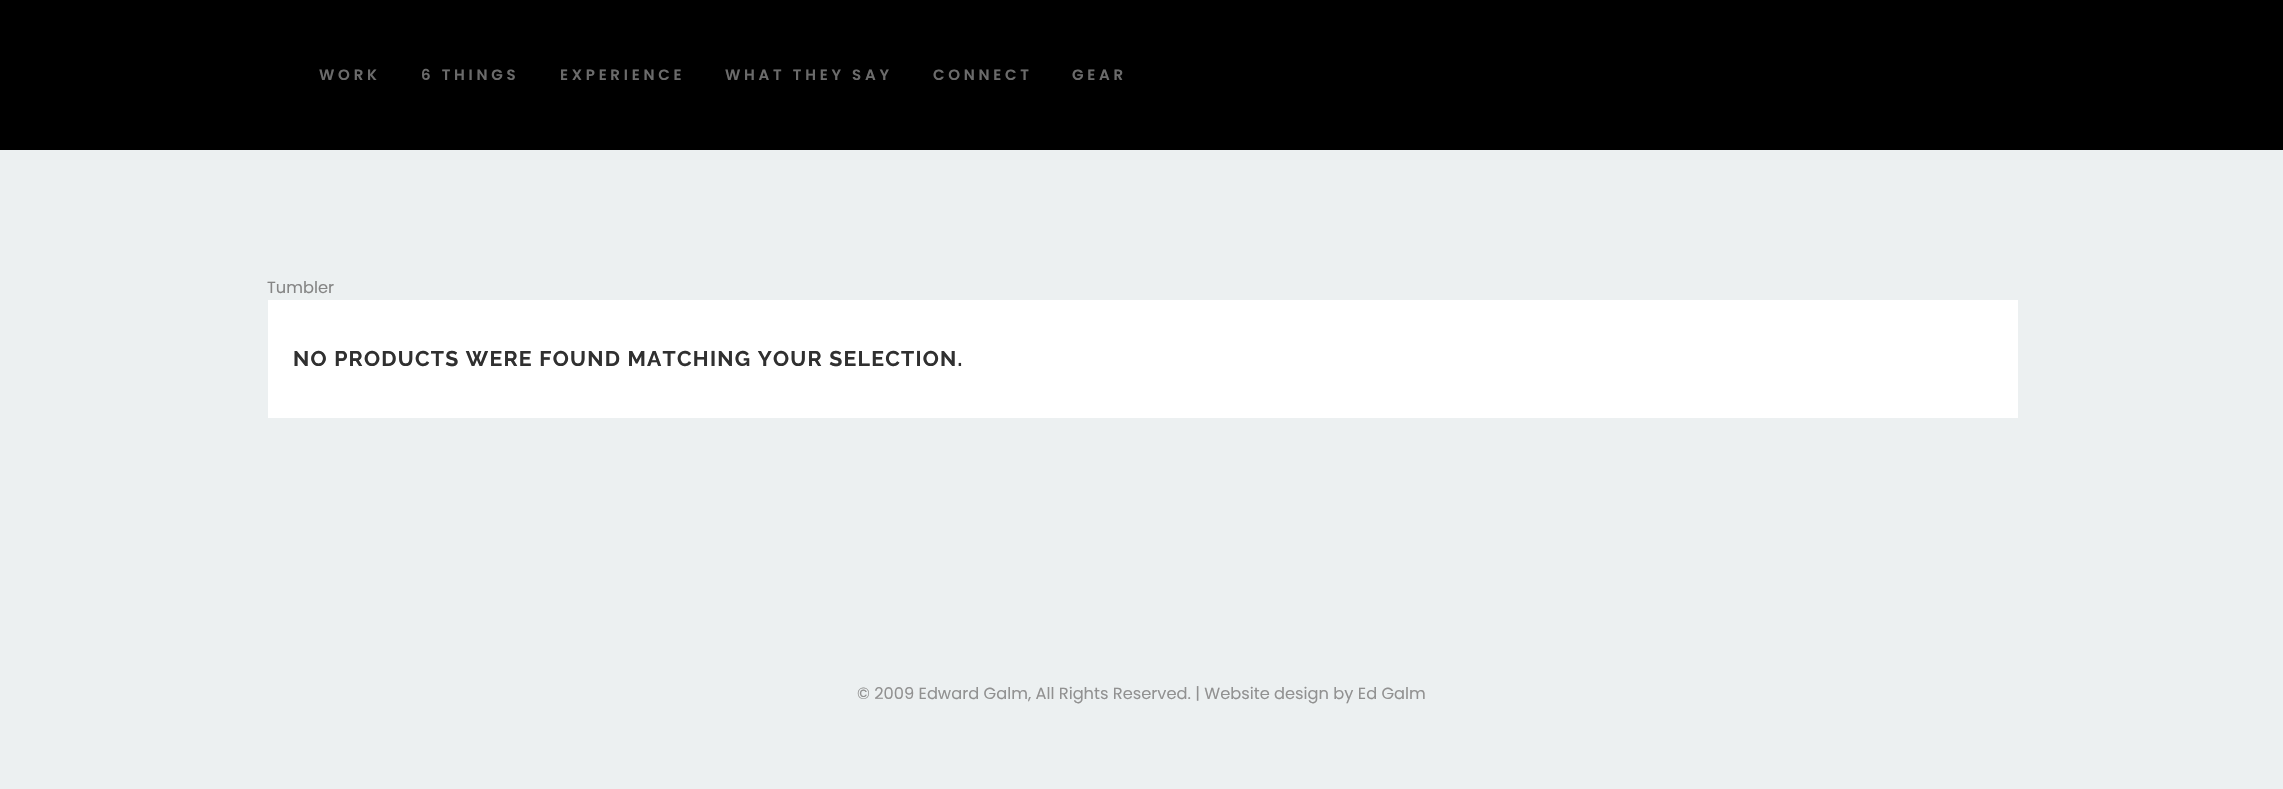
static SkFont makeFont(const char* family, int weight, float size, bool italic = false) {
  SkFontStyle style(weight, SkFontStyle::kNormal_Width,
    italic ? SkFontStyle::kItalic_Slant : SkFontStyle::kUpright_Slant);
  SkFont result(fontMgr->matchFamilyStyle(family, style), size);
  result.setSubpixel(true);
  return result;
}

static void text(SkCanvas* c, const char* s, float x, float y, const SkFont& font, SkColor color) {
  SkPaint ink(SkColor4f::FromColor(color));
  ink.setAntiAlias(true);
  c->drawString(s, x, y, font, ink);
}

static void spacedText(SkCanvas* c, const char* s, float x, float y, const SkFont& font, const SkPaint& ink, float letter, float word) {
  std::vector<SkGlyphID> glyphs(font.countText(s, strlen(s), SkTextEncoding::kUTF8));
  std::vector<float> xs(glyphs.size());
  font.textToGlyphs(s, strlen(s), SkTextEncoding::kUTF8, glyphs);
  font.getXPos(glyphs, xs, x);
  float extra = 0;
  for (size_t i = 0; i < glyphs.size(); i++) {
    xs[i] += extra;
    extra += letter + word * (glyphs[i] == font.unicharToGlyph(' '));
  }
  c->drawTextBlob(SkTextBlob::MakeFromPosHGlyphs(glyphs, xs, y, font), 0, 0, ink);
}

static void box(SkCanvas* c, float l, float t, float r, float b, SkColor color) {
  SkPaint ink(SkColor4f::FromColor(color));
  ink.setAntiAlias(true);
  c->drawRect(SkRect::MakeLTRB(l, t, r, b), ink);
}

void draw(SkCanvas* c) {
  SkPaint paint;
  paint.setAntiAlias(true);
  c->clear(0xffecf0f1);
  box(c, 0, 0, 2283, 150, 0xff000000);
  SkFont face1 = makeFont("Poppins", 600, 15);
  paint.setColor(0xff6b6b6b);
  spacedText(c, "WORK", 319, 80, face1, paint, 3.75f, 0);
  spacedText(c, "6 THINGS", 421, 80, face1, paint, 3.75f, 0);
  spacedText(c, "EXPERIENCE", 560, 80, face1, paint, 3.75f, 0);
  spacedText(c, "WHAT THEY SAY", 725, 80, face1, paint, 3.75f, 0);
  spacedText(c, "CONNECT", 933, 80, face1, paint, 3.75f, 0);
  spacedText(c, "GEAR", 1072, 80, face1, paint, 3.75f, 0);
  SkFont face2 = makeFont("Poppins", 400, 16.25f);
  text(c, "Tumbler", 267, 293, face2, 0xff858585);
  box(c, 268, 300, 2018, 418, 0xffffffff);
  SkFont face3 = makeFont("Raleway", 700, 21.25f);
  paint.setColor(0xff303030);
  spacedText(c, "NO PRODUCTS WERE FOUND MATCHING YOUR SELECTION.", 293, 366, face3, paint, 1.25f, 0);
  text(c, "© 2009 Edward Galm, All Rights Reserved. | Website design by Ed Galm", 857, 699, face2, 0xff919191);
}
